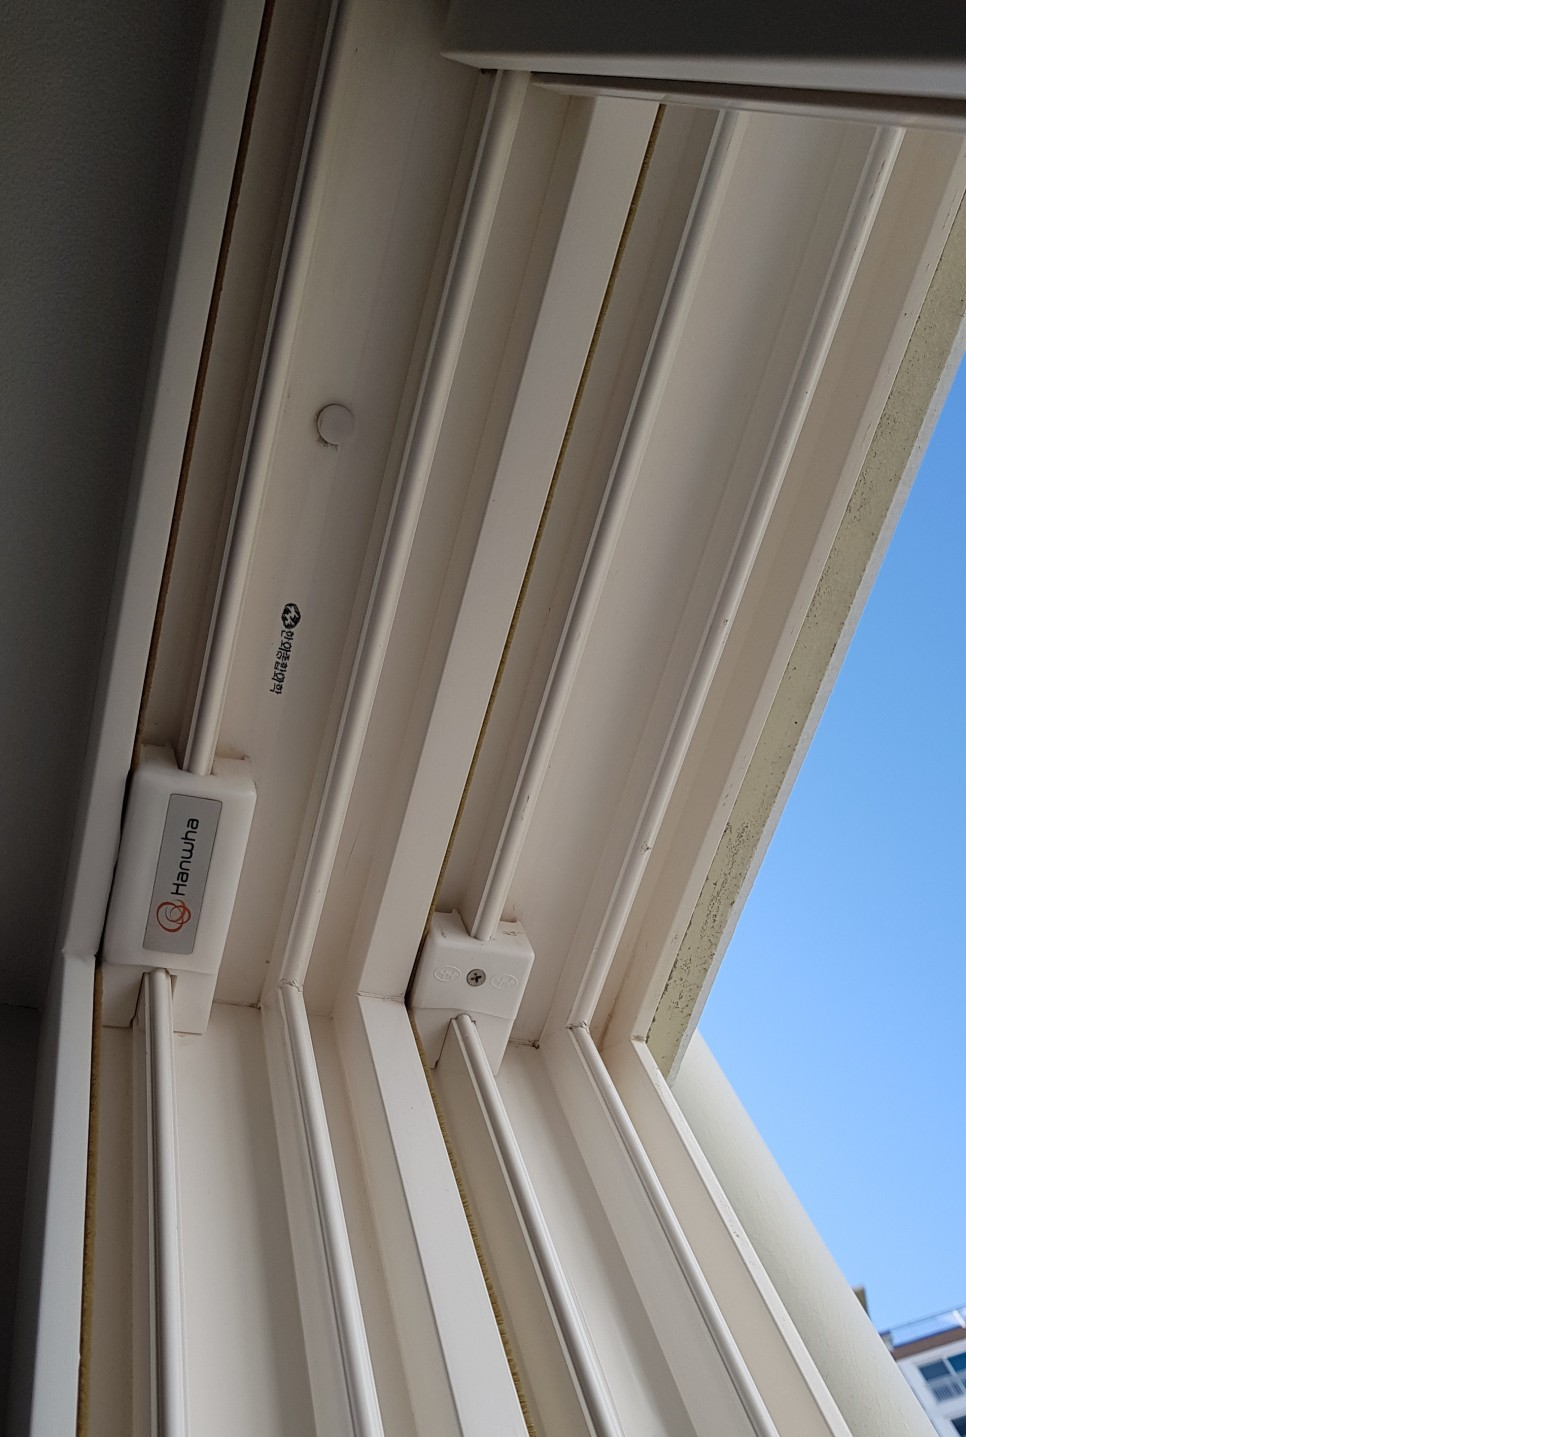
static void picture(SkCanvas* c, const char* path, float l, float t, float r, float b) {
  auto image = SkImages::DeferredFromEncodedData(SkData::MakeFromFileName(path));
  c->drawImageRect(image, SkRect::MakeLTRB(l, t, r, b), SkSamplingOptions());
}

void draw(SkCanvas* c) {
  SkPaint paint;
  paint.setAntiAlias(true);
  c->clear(0xffffffff);
  picture(c, "img_01.png", 0, 0, 966, 1437);
}
